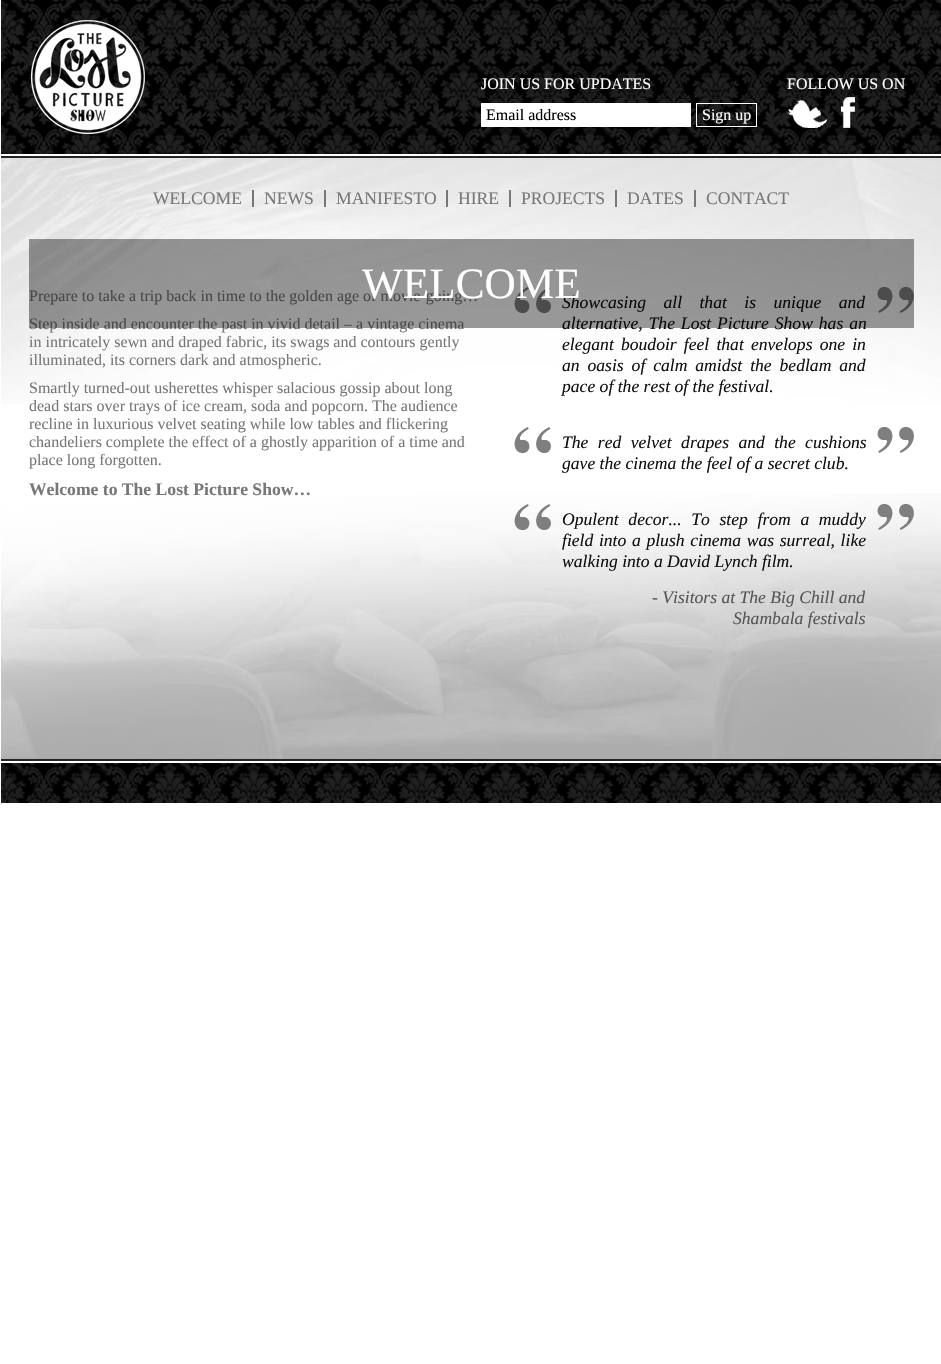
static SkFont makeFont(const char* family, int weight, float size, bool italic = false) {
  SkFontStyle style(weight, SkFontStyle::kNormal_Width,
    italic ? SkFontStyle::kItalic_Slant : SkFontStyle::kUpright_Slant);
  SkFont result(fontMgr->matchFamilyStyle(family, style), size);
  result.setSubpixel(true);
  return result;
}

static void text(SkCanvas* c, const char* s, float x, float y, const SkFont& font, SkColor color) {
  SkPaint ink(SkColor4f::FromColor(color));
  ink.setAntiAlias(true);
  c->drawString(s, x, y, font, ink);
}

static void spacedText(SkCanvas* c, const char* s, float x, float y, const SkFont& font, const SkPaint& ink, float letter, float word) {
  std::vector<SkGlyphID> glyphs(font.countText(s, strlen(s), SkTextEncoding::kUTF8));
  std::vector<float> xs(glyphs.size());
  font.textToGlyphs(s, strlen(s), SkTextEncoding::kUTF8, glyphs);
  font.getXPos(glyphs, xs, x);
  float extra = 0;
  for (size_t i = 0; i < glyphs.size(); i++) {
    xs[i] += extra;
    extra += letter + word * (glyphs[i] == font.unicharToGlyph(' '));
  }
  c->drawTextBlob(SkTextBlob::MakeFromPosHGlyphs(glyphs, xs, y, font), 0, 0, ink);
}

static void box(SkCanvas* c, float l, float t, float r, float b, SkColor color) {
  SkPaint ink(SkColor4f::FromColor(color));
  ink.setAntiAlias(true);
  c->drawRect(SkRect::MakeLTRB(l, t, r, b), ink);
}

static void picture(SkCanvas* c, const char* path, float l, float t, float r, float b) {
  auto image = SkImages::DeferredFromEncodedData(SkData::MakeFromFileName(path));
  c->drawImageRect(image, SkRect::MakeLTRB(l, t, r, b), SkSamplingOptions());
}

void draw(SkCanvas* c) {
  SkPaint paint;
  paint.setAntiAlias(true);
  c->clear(0xffffffff);
  picture(c, "img_01.png", 1, 158, 941, 404);
  picture(c, "img_02.png", 1, 0, 941, 154);
  picture(c, "img_03.png", 31, 20, 145, 134);
  SkFont face1 = makeFont("Liberation Serif", 400, 16);
  text(c, "JOIN US FOR UPDATES", 481, 89, face1, 0xffffffff);
  box(c, 481, 103, 691, 127, 0xffffffff);
  text(c, "Email address", 486, 120, face1, 0xff000000);
  paint.setStyle(SkPaint::kStroke_Style);
  paint.setStrokeWidth(1);
  paint.setColor(0xffffffff);
  c->drawRect(SkRect::MakeLTRB(696.5f, 103.5f, 756.5f, 126.5f), paint);
  text(c, "Sign up", 702, 120, face1, 0xffffffff);
  text(c, "FOLLOW US ON", 787, 89, face1, 0xffffffff);
  picture(c, "img_04.png", 787, 100, 827, 128);
  picture(c, "img_05.png", 841, 97, 855, 128);
  picture(c, "img_06.png", 1, 493, 941, 759);
  box(c, 1, 156, 941, 158, 0xff252525);
  box(c, 1, 759, 941, 761, 0xff252525);
  SkFont face2 = makeFont("Liberation Serif", 400, 17.6f);
  text(c, "WELCOME", 153, 204, face2, 0xff777777);
  text(c, "NEWS", 264, 204, face2, 0xff777777);
  box(c, 252, 190, 254, 207, 0xff777777);
  text(c, "MANIFESTO", 336, 204, face2, 0xff777777);
  box(c, 324, 190, 326, 207, 0xff777777);
  text(c, "HIRE", 458, 204, face2, 0xff777777);
  box(c, 446, 190, 448, 207, 0xff777777);
  text(c, "PROJECTS", 521, 204, face2, 0xff777777);
  box(c, 509, 190, 511, 207, 0xff777777);
  text(c, "DATES", 627, 204, face2, 0xff777777);
  box(c, 615, 190, 617, 207, 0xff777777);
  text(c, "CONTACT", 706, 204, face2, 0xff777777);
  box(c, 694, 190, 696, 207, 0xff777777);
  text(c, "Prepare to take a trip back in time to the golden age of movie-going…", 29, 301, face1, 0xff777777);
  text(c, "Step inside and encounter the past in vivid detail – a vintage cinema", 29, 329, face1, 0xff777777);
  picture(c, "img_07.png", 514, 287, 914, 313);
  SkFont face3 = makeFont("Liberation Serif", 400, 17.6f, true);
  paint.setStyle(SkPaint::kFill_Style);
  paint.setColor(0xff111111);
  spacedText(c, "Showcasing all that is unique and", 562, 308, face3, paint, 0, 13);
  spacedText(c, "alternative, The Lost Picture Show has an", 562, 329, face3, paint, 0, 1.5f);
  box(c, 29, 239, 914, 328, 0x66000000);
  SkFont face4 = makeFont("Liberation Serif", 400, 43.25f);
  text(c, "WELCOME", 362, 298, face4, 0xffffffff);
  text(c, "in intricately sewn and draped fabric, its swags and contours gently", 29, 347, face1, 0xff777777);
  text(c, "illuminated, its corners dark and atmospheric.", 29, 365, face1, 0xff777777);
  text(c, "Smartly turned-out usherettes whisper salacious gossip about long", 29, 393, face1, 0xff777777);
  text(c, "dead stars over trays of ice cream, soda and popcorn. The audience", 29, 411, face1, 0xff777777);
  text(c, "recline in luxurious velvet seating while low tables and flickering", 29, 429, face1, 0xff777777);
  text(c, "chandeliers complete the effect of a ghostly apparition of a time and", 29, 447, face1, 0xff777777);
  text(c, "place long forgotten.", 29, 465, face1, 0xff777777);
  SkFont face5 = makeFont("Liberation Serif", 700, 17.6f);
  text(c, "Welcome to The Lost Picture Show…", 29, 495, face5, 0xff777777);
  spacedText(c, "elegant boudoir feel that envelops one in", 562, 350, face3, paint, 0, 2.75f);
  spacedText(c, "an oasis of calm amidst the bedlam and", 562, 371, face3, paint, 0, 3.5f);
  text(c, "pace of the rest of the festival.", 562, 392, face3, 0xff111111);
  picture(c, "img_08.png", 514, 427, 914, 453);
  spacedText(c, "The red velvet drapes and the cushions", 562, 448, face3, paint, 0, 5);
  text(c, "gave the cinema the feel of a secret club.", 562, 469, face3, 0xff111111);
  picture(c, "img_09.png", 514, 504, 914, 530);
  spacedText(c, "Opulent decor... To step from a muddy", 562, 525, face3, paint, 0, 5.25f);
  spacedText(c, "field into a plush cinema was surreal, like", 562, 546, face3, paint, 0, 1.25f);
  text(c, "walking into a David Lynch film.", 562, 567, face3, 0xff111111);
  text(c, "- Visitors at The Big Chill and", 652, 603, face3, 0xff555555);
  text(c, "Shambala festivals", 733, 624, face3, 0xff555555);
  picture(c, "img_10.png", 1, 763, 941, 803);
}
